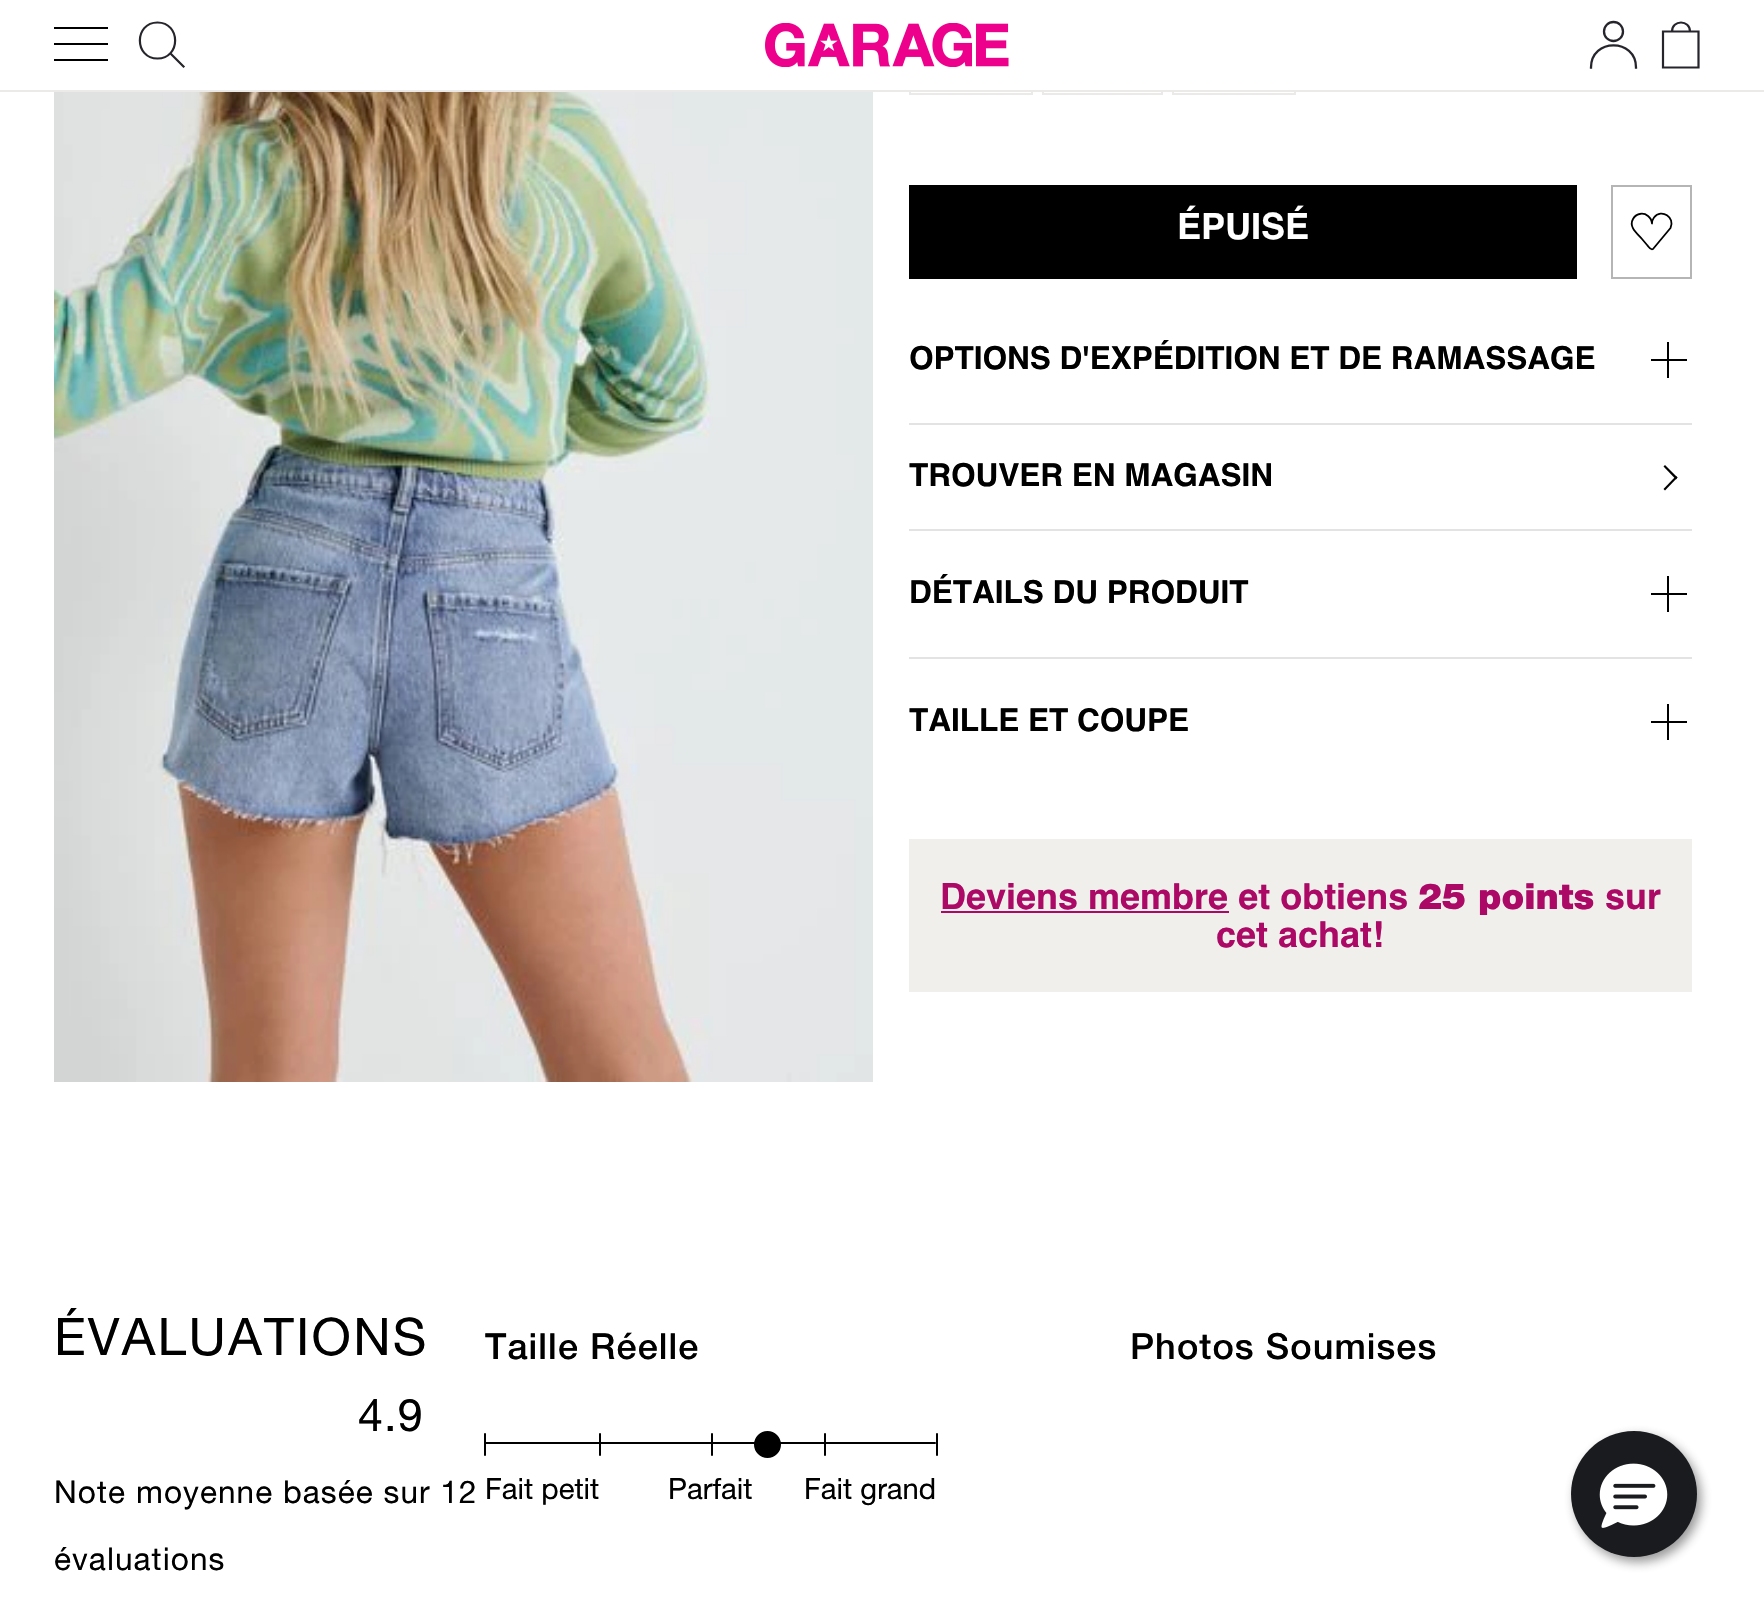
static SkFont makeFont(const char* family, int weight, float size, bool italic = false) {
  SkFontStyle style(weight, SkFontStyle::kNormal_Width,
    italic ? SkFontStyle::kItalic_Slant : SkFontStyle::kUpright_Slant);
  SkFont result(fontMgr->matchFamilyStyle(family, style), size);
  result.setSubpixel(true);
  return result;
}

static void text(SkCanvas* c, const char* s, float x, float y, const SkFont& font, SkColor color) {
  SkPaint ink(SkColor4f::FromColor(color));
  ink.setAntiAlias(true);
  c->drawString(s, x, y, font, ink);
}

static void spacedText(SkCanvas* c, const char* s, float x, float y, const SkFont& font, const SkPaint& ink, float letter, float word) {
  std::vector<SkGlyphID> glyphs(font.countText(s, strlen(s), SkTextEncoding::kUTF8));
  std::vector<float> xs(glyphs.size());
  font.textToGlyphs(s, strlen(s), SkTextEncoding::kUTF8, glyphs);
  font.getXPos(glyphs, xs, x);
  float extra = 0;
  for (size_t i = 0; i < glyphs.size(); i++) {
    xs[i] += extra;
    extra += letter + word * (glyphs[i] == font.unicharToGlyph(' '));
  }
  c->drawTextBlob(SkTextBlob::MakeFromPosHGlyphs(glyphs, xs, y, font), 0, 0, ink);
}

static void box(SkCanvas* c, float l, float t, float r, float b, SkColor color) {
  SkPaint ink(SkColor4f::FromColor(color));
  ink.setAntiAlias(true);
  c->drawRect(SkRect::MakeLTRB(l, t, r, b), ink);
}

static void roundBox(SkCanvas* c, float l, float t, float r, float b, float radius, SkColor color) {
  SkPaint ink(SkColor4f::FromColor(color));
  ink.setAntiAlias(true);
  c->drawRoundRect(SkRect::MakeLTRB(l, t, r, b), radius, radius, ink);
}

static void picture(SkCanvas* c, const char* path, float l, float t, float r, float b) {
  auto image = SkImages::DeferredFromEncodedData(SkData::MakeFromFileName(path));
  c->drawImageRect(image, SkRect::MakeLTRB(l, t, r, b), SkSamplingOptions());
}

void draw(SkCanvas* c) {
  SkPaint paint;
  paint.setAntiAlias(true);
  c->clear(0xffffffff);
  paint.setStyle(SkPaint::kStroke_Style);
  paint.setStrokeWidth(2);
  paint.setColor(0xffece9e9);
  c->drawRect(SkRect::MakeLTRB(910, 6, 1032, 94), paint);
  c->drawRect(SkRect::MakeLTRB(1043, 6, 1162, 94), paint);
  c->drawRect(SkRect::MakeLTRB(1173, 6, 1295, 94), paint);
  box(c, 0, 90, 1764, 92, 0xffece9e9);
  box(c, 909, 5, 1296, 90, 0xffffffff);
  box(c, 54, 43, 108, 45, 0xff000000);
  box(c, 54, 27, 108, 29, 0xff000000);
  box(c, 54, 59, 108, 61, 0xff000000);
  paint.setStrokeWidth(2.2f);
  paint.setStrokeCap(SkPaint::kSquare_Cap);
  paint.setColor(0xff25252b);
  c->drawPath(SkPathBuilder().moveTo(183.5f, 66.5f).lineTo(171, 54).moveTo(157.5f, 58.5f).cubicTo(181, 58.5f, 181, 22.5f, 157.5f, 22.5f).cubicTo(134, 22.5f, 134, 58.5f, 157.5f, 58.5f).close().detach(), paint);
  picture(c, "img_01.png", 765, 23, 1009, 67);
  paint.setStrokeWidth(2.3f);
  c->drawPath(SkPathBuilder().moveTo(1591, 67.5f).cubicTo(1591, 38, 1636, 38, 1636, 67.5f).detach(), paint);
  paint.setStrokeCap(SkPaint::kButt_Cap);
  c->drawCircle(1613.5f, 31.5f, 9.5f, paint);
  paint.setStrokeWidth(2.2f);
  paint.setStrokeCap(SkPaint::kSquare_Cap);
  c->drawPath(SkPathBuilder().moveTo(1690, 31.5f).lineTo(1698.5f, 31.5f).lineTo(1698.5f, 67.5f).lineTo(1663, 67.5f).lineTo(1663, 31.5f).lineTo(1672, 31.5f).moveTo(1690, 31.5f).cubicTo(1690, 19.5f, 1672, 19.5f, 1672, 31.5f).moveTo(1690, 31.5f).lineTo(1672, 31.5f).detach(), paint);
  picture(c, "img_02.png", 54, 92, 873, 1082);
  box(c, 909, 185, 1577, 279, 0xff000000);
  SkFont face1 = makeFont("Helvetica", 700, 36);
  text(c, "ÉPUISÉ", 1177, 239, face1, 0xffffffff);
  paint.setStrokeWidth(2);
  paint.setStrokeCap(SkPaint::kButt_Cap);
  paint.setColor(0xffb5b5b5);
  c->drawRect(SkRect::MakeLTRB(1612, 186, 1691, 278), paint);
  paint.setStrokeWidth(1.8f);
  paint.setStrokeCap(SkPaint::kRound_Cap);
  paint.setStrokeJoin(SkPaint::kRound_Join);
  paint.setColor(0xff000000);
  c->drawPath(SkPathBuilder().moveTo(1639.5f, 214).cubicTo(1637, 214.5f, 1634.5f, 216.5f, 1633, 219).cubicTo(1628.5f, 227, 1637, 233.5f, 1642, 239).lineTo(1647.5f, 245.5f).cubicTo(1648.5f, 246.5f, 1650.5f, 250.5f, 1653, 249).lineTo(1670.5f, 228).cubicTo(1675.5f, 217.5f, 1661.5f, 208, 1654, 217.5f).cubicTo(1652.5f, 219.5f, 1652, 221.5f, 1652, 223.5f).cubicTo(1651.5f, 217.5f, 1646, 212.5f, 1639.5f, 214).close().detach(), paint);
  SkFont face2 = makeFont("Helvetica", 700, 31.5f);
  text(c, "OPTIONS D'EXPÉDITION ET DE RAMASSAGE", 909, 369, face2, 0xff000000);
  box(c, 1667, 342, 1669, 378, 0xff000000);
  box(c, 1651, 359, 1687, 361, 0xff000000);
  box(c, 909, 423, 1692, 425, 0xffe3e3e3);
  box(c, 909, 529, 1692, 531, 0xffe3e3e3);
  text(c, "TROUVER EN MAGASIN", 909, 486, face2, 0xff000000);
  paint.setStyle(SkPaint::kFill_Style);
  c->drawPath(SkPathBuilder().moveTo(1665, 465).lineTo(1677.5f, 477.5f).lineTo(1676, 479.5f).lineTo(1663.5f, 466.5f).close().detach(), paint);
  c->drawPath(SkPathBuilder().moveTo(1676, 476).lineTo(1677.5f, 477.5f).lineTo(1665, 490.5f).lineTo(1663.5f, 489).close().detach(), paint);
  text(c, "DÉTAILS DU PRODUIT", 909, 603, face2, 0xff000000);
  box(c, 1667, 576, 1669, 612, 0xff000000);
  box(c, 1651, 593, 1687, 595, 0xff000000);
  box(c, 909, 657, 1692, 659, 0xffe3e3e3);
  text(c, "TAILLE ET COUPE", 909, 731, face2, 0xff000000);
  box(c, 1667, 704, 1669, 740, 0xff000000);
  box(c, 1651, 721, 1687, 723, 0xff000000);
  box(c, 909, 839, 1692, 992, 0xfff0efeb);
  text(c, "Deviens membre et obtiens", 940, 909, face1, 0xffac0967);
  box(c, 941, 911, 1229, 913, 0xffac0967);
  SkFont face3 = makeFont("Helvetica Neue", 900, 36);
  text(c, "25 points", 1418, 909, face3, 0xffac0967);
  text(c, "sur", 1605, 909, face1, 0xffac0967);
  text(c, "cet achat!", 1216, 947, face1, 0xffac0967);
  SkFont face4 = makeFont("Helvetica Neue", 400, 51.75f);
  spacedText(c, "ÉVALUATIONS", 54, 1355, face4, paint, 2.25f, 0);
  SkFont face5 = makeFont("Helvetica Neue", 400, 45);
  spacedText(c, "4.9", 358, 1431, face5, paint, 1.1f, 0);
  SkFont face6 = makeFont("Helvetica Neue", 400, 31.5f);
  spacedText(c, "Note moyenne basée sur 12", 54, 1503, face6, paint, 1.1f, 0);
  spacedText(c, "évaluations", 54, 1570, face6, paint, 1.1f, 0);
  SkFont face7 = makeFont("Helvetica Neue", 500, 36);
  spacedText(c, "Taille Réelle", 485, 1359, face7, paint, 1.1f, 0);
  roundBox(c, 484, 1442, 936, 1444, 1, 0xff000000);
  c->drawCircle(767.5f, 1444.5f, 11, paint);
  paint.setStyle(SkPaint::kStroke_Style);
  paint.setStrokeWidth(5);
  paint.setStrokeCap(SkPaint::kButt_Cap);
  paint.setStrokeJoin(SkPaint::kMiter_Join);
  c->drawCircle(767.5f, 1444.5f, 11, paint);
  roundBox(c, 484, 1433, 486, 1456, 1, 0xff000000);
  roundBox(c, 599, 1433, 601, 1456, 1, 0xff000000);
  roundBox(c, 711, 1433, 713, 1456, 1, 0xff000000);
  roundBox(c, 824, 1433, 826, 1456, 1, 0xff000000);
  roundBox(c, 936, 1433, 938, 1456, 1, 0xff000000);
  SkFont face8 = makeFont("Helvetica Neue", 400, 29.25f);
  text(c, "Fait petit", 485, 1499, face8, 0xff000000);
  text(c, "Parfait", 668, 1499, face8, 0xff000000);
  text(c, "Fait grand", 804, 1499, face8, 0xff000000);
  paint.setStyle(SkPaint::kFill_Style);
  spacedText(c, "Photos Soumises", 1130, 1359, face7, paint, 1.1f, 0);
  paint.setColor(0x802d2d2d);
  paint.setMaskFilter(SkMaskFilter::MakeBlur(kNormal_SkBlurStyle, 5.5f));
  c->drawRoundRect(SkRect::MakeLTRB(1575, 1436, 1701, 1562), 63, 63, paint);
  paint.setMaskFilter(nullptr);
  paint.setColor(0xff1a1b1e);
  c->drawCircle(1634, 1494, 63, paint);
  picture(c, "img_03.png", 1599, 1463, 1668, 1528);
}
